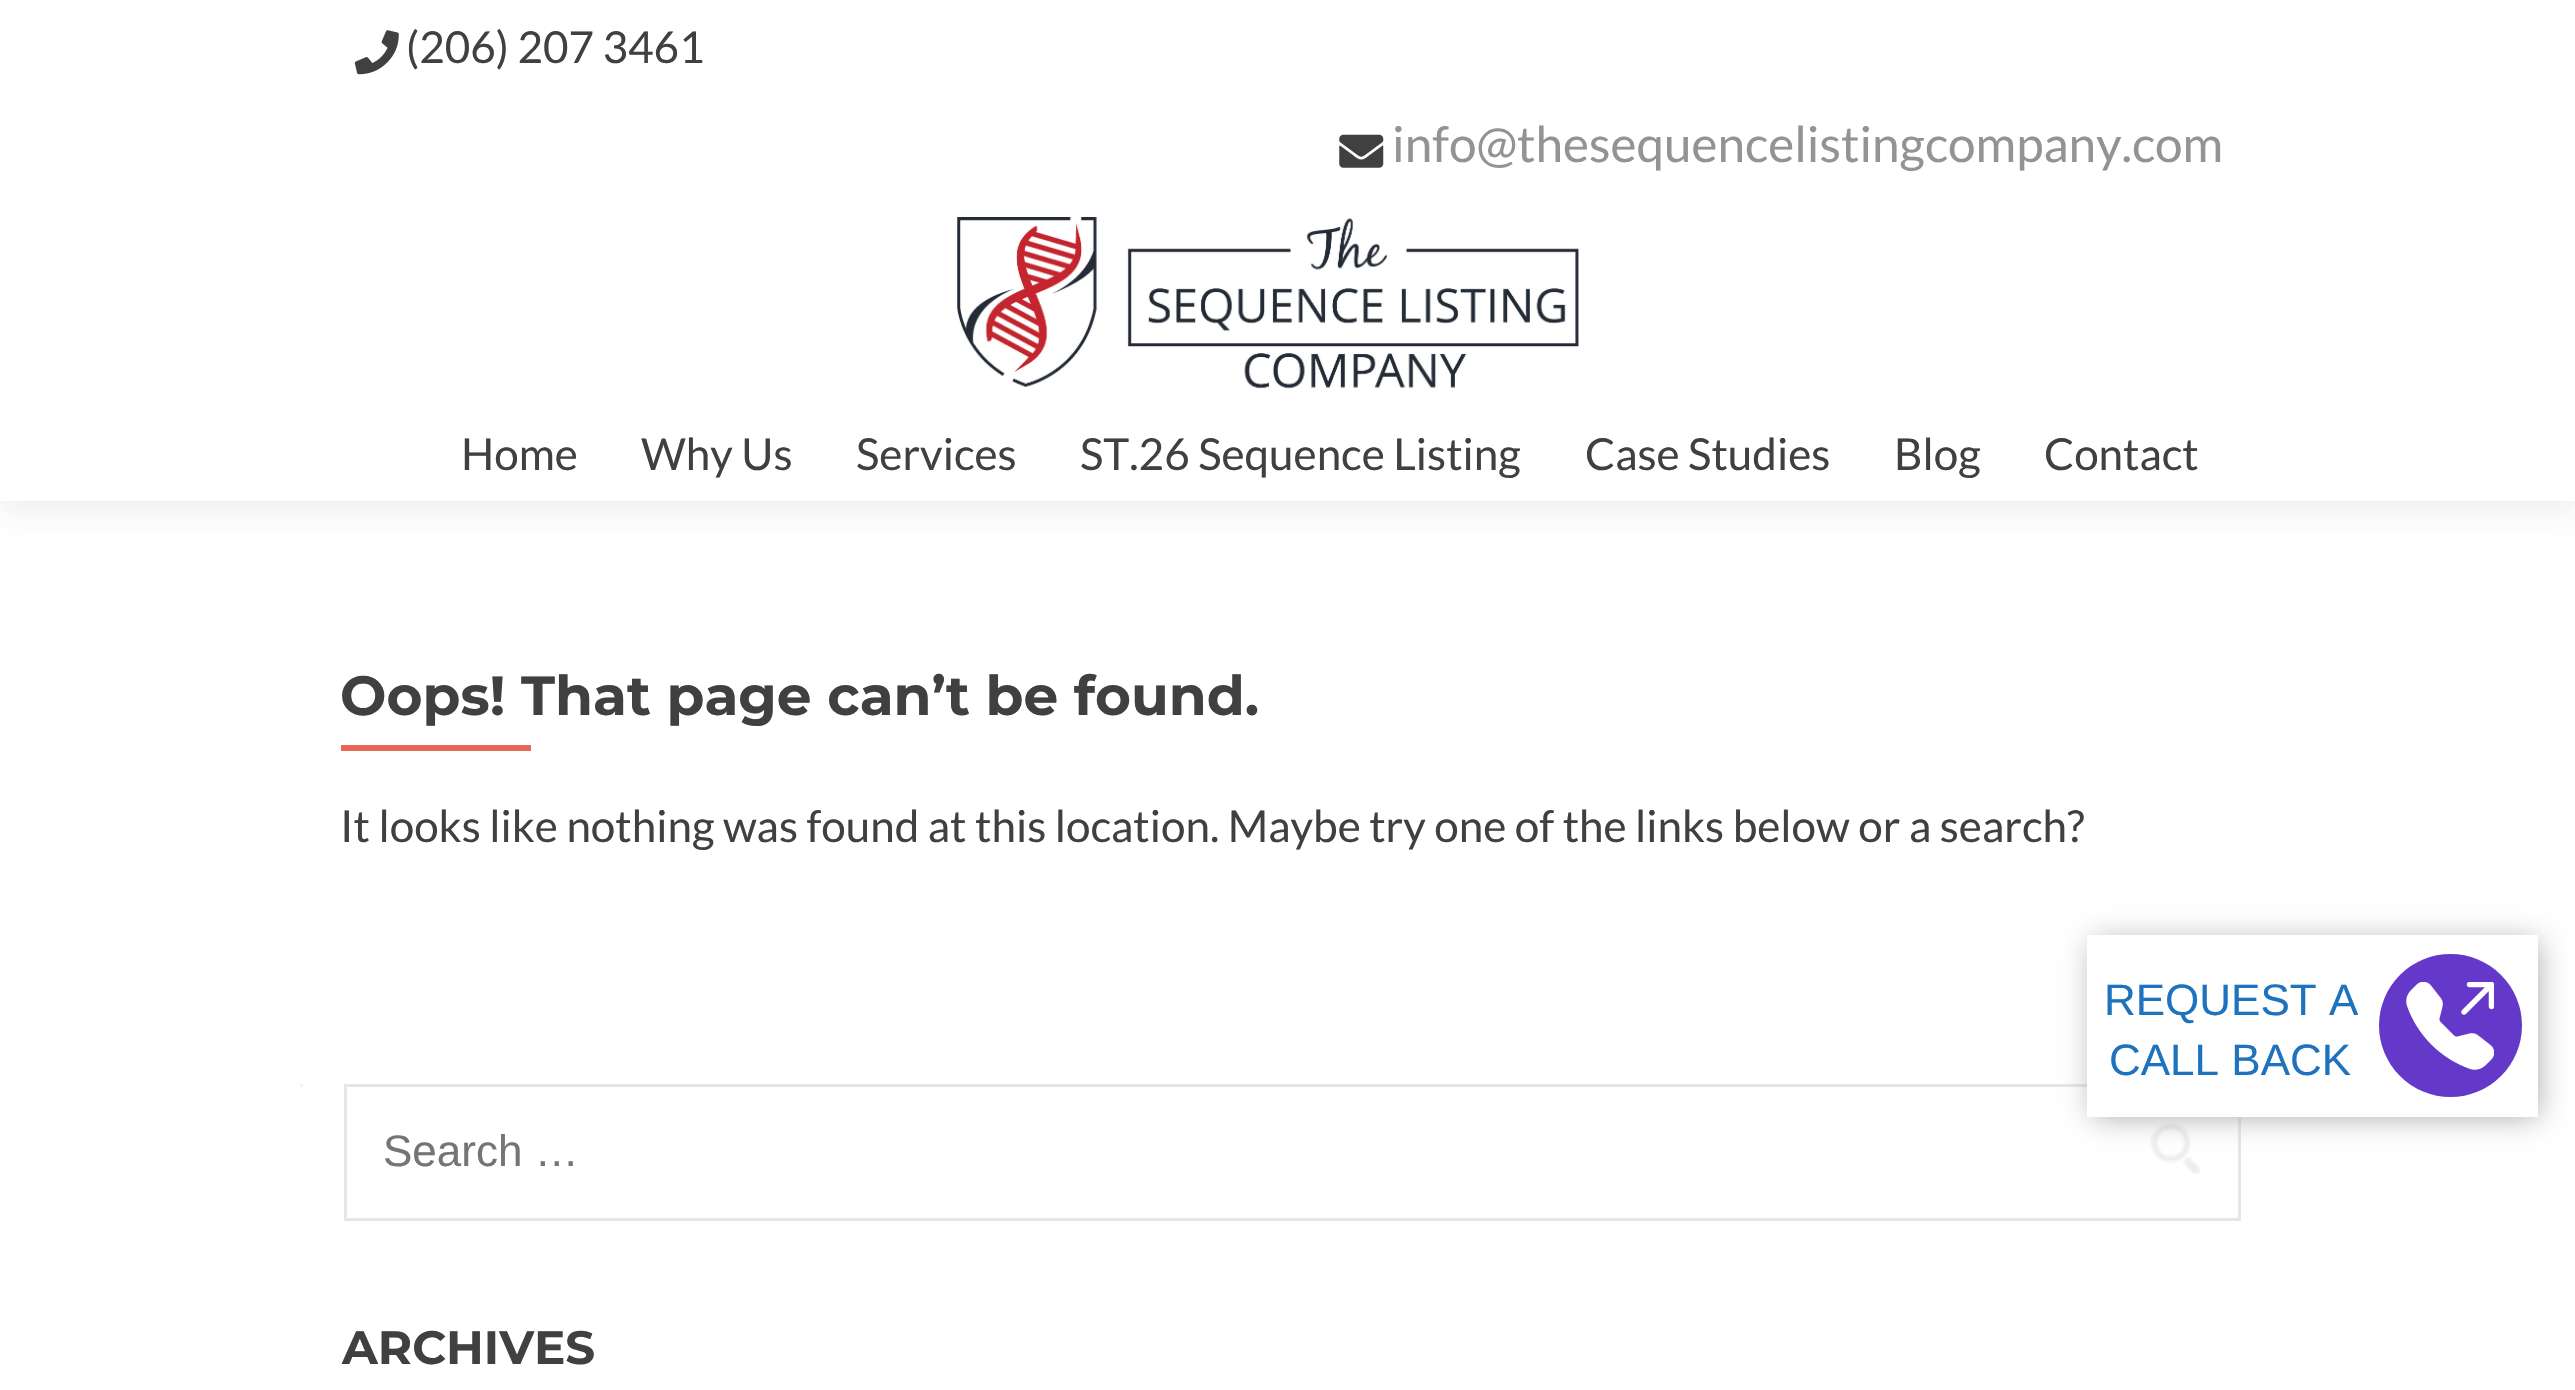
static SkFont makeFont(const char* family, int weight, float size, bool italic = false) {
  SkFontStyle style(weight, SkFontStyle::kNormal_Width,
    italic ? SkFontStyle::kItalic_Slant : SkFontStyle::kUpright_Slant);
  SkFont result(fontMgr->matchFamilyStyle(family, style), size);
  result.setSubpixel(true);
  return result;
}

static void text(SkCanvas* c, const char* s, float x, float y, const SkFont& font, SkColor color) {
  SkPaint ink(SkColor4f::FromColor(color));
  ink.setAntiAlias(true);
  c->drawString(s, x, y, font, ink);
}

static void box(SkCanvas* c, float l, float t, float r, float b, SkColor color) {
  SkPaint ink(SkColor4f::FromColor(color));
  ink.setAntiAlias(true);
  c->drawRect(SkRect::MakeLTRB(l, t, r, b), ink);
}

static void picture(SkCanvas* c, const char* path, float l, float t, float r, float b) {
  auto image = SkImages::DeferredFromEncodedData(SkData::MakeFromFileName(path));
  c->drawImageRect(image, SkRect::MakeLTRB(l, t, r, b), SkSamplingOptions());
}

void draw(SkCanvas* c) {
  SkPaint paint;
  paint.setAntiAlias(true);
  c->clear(0xffffffff);
  paint.setColor(0x14323232);
  paint.setMaskFilter(SkMaskFilter::MakeBlur(kNormal_SkBlurStyle, 15));
  c->drawRect(SkRect::MakeLTRB(0, 14, 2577, 514), paint);
  paint.setMaskFilter(nullptr);
  box(c, 0, 0, 2575, 501, 0xffffffff);
  picture(c, "img_01.png", 354, 30, 399, 75);
  SkFont face1 = makeFont("Lato", 400, 44);
  text(c, "(206) 207 3461", 406, 63, face1, 0xff404040);
  picture(c, "img_02.png", 1339, 134, 1384, 168);
  SkFont face2 = makeFont("Lato", 400, 49.5f);
  text(c, "info@thesequencelistingcompany.com", 1392, 162, face2, 0xff939393);
  picture(c, "img_03.png", 957, 217, 1579, 389);
  text(c, "Home", 461, 470, face1, 0xff404040);
  text(c, "Why Us", 641, 470, face1, 0xff404040);
  text(c, "Services", 856, 470, face1, 0xff404040);
  text(c, "ST.26 Sequence Listing", 1080, 470, face1, 0xff404040);
  text(c, "Case Studies", 1585, 470, face1, 0xff404040);
  text(c, "Blog", 1894, 470, face1, 0xff404040);
  text(c, "Contact", 2044, 470, face1, 0xff404040);
  SkFont face3 = makeFont("Montserrat", 100, 55);
  text(c, "Oops! That page can’t be found.", 340, 715, face3, 0xff404040);
  box(c, 341, 745, 531, 751, 0xffe96656);
  text(c, "It looks like nothing was found at this location. Maybe try one of the links below or a search?", 340, 842, face1, 0xff404040);
  box(c, 300, 1084, 303, 1087, 0xfff2f2f2);
  paint.setStyle(SkPaint::kStroke_Style);
  paint.setStrokeWidth(3);
  paint.setColor(0xffe6e6e6);
  c->drawRect(SkRect::MakeLTRB(345.5f, 1085.5f, 2239.5f, 1219.5f), paint);
  SkFont face4 = makeFont("Liberation Sans", 400, 44);
  text(c, "Search …", 383, 1166, face4, 0xff757575);
  picture(c, "img_04.png", 2150, 1122, 2200, 1174);
  SkFont face5 = makeFont("Montserrat", 100, 46.75f);
  text(c, "ARCHIVES", 342, 1364, face5, 0xff404040);
  paint.setStyle(SkPaint::kFill_Style);
  paint.setColor(0xffaaaaaa);
  paint.setMaskFilter(SkMaskFilter::MakeBlur(kNormal_SkBlurStyle, 14));
  c->drawRect(SkRect::MakeLTRB(2093, 941, 2538, 1117), paint);
  paint.setMaskFilter(nullptr);
  box(c, 2087, 935, 2538, 1117, 0xffffffff);
  text(c, "REQUEST A", 2104, 1015, face4, 0xff1e73be);
  text(c, "CALL BACK", 2109, 1075, face4, 0xff1e73be);
  paint.setColor(0xff6439ca);
  c->drawCircle(2450.5f, 1025.5f, 71.5f, paint);
  picture(c, "img_05.png", 2406, 982, 2494, 1070);
}
